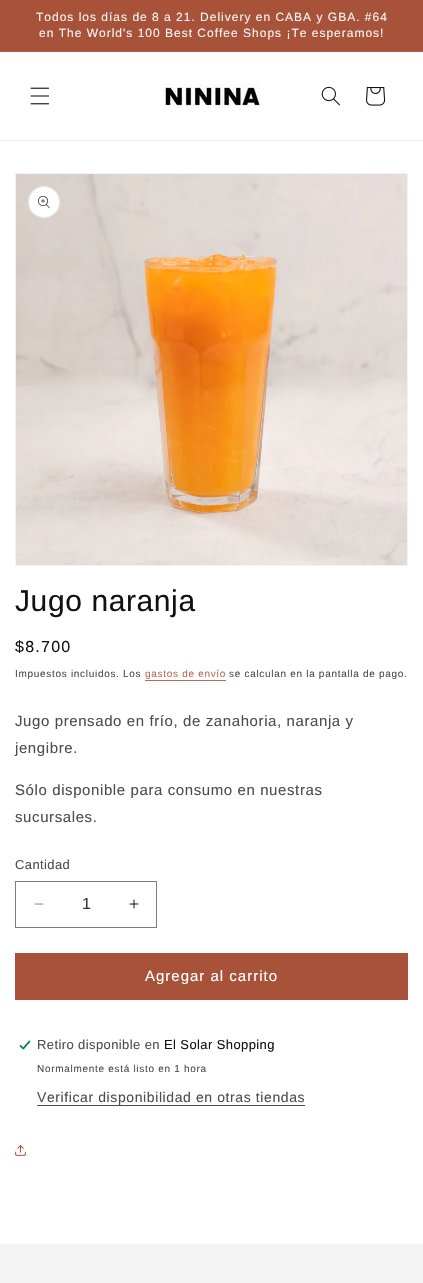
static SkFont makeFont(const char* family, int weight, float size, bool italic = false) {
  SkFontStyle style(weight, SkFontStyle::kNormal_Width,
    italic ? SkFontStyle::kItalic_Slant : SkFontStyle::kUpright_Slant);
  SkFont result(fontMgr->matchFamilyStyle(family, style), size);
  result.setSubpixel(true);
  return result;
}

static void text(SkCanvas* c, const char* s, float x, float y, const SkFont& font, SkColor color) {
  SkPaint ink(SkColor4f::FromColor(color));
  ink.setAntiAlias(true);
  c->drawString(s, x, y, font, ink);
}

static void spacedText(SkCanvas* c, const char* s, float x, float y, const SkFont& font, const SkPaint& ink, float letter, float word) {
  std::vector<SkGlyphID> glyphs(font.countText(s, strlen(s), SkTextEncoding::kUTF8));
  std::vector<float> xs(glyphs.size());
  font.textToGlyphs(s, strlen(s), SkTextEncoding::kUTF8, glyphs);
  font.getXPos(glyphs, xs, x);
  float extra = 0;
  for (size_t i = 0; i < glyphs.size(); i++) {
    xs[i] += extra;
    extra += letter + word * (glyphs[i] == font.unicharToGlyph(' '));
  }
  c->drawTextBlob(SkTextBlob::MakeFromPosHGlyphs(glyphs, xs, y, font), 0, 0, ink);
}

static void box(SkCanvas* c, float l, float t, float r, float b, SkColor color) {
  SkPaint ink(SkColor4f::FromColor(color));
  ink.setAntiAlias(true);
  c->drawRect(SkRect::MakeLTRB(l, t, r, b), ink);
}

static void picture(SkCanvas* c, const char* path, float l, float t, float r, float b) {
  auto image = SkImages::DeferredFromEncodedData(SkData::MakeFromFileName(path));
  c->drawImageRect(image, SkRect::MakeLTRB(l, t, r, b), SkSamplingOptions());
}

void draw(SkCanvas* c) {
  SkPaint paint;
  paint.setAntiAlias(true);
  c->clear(0xffffffff);
  box(c, 0, 0, 423, 51, 0xffa8523a);
  box(c, 0, 51, 423, 52, 0xffae5f49);
  SkFont face1 = makeFont("Arimo", 400, 12);
  paint.setColor(0xfff3f3f3);
  spacedText(c, "Todos los días de 8 a 21. Delivery en CABA y GBA. #64", 36, 21, face1, paint, 1, 0);
  spacedText(c, "en The World's 100 Best Coffee Shops ¡Te esperamos!", 39, 37, face1, paint, 1, 0);
  box(c, 0, 140, 423, 141, 0xffececec);
  picture(c, "img_01.png", 30, 87, 50, 105);
  picture(c, "img_02.png", 163, 84, 261, 108);
  picture(c, "img_03.png", 321, 86, 340, 106);
  picture(c, "img_04.png", 366, 87, 386, 106);
  paint.setStyle(SkPaint::kStroke_Style);
  paint.setStrokeWidth(1);
  c->drawRect(SkRect::MakeLTRB(15.5f, 173.5f, 407.5f, 565.5f), paint);
  picture(c, "img_05.png", 16, 174, 407, 565);
  paint.setStyle(SkPaint::kFill_Style);
  paint.setColor(0xffffffff);
  c->drawCircle(44, 202, 16, paint);
  paint.setStyle(SkPaint::kStroke_Style);
  paint.setColor(0x1a121212);
  c->drawCircle(44, 202, 15.5f, paint);
  picture(c, "img_06.png", 38, 196, 50, 208);
  SkFont face2 = makeFont("Arimo", 400, 30);
  paint.setStyle(SkPaint::kFill_Style);
  paint.setColor(0xff121212);
  spacedText(c, "Jugo naranja", 15, 611, face2, paint, 0.6f, 0);
  SkFont face3 = makeFont("Arimo", 400, 16);
  spacedText(c, "$8.700", 15, 652, face3, paint, 1.25f, 0);
  SkFont face4 = makeFont("Arimo", 400, 10);
  paint.setColor(0xff4d4d4d);
  spacedText(c, "Impuestos incluidos. Los", 15, 677, face4, paint, 0.7f, 0);
  paint.setColor(0xffb56c58);
  spacedText(c, "gastos de envío", 145, 677, face4, paint, 0.7f, 0);
  box(c, 145, 680, 226, 681, 0xffb56c58);
  paint.setColor(0xff4d4d4d);
  spacedText(c, "se calculan en la pantalla de pago.", 229, 677, face4, paint, 0.7f, 0);
  SkFont face5 = makeFont("Arimo", 400, 15);
  spacedText(c, "Jugo prensado en frío, de zanahoria, naranja y", 15, 726, face5, paint, 0.6f, 0);
  spacedText(c, "jengibre.", 15, 753, face5, paint, 0.6f, 0);
  spacedText(c, "Sólo disponible para consumo en nuestras", 15, 795, face5, paint, 0.6f, 0);
  spacedText(c, "sucursales.", 15, 822, face5, paint, 0.6f, 0);
  SkFont face6 = makeFont("Arimo", 400, 13);
  spacedText(c, "Cantidad", 15, 869, face6, paint, 0.4f, 0);
  picture(c, "img_07.png", 34, 903, 44, 905);
  picture(c, "img_08.png", 129, 899, 139, 909);
  paint.setStyle(SkPaint::kStroke_Style);
  paint.setColor(0xff7d7d7d);
  c->drawRect(SkRect::MakeLTRB(15.5f, 881.5f, 156.5f, 927.5f), paint);
  text(c, "1", 82, 909, face3, 0xff363636);
  box(c, 15, 953, 408, 1000, 0xffa8523a);
  paint.setStyle(SkPaint::kFill_Style);
  paint.setColor(0xffffffff);
  spacedText(c, "Agregar al carrito", 145, 981, face5, paint, 1, 0);
  picture(c, "img_09.png", 19, 1040, 31, 1050);
  paint.setColor(0xff4d4d4d);
  spacedText(c, "Retiro disponible en", 37, 1049, face6, paint, 0.4f, 0);
  paint.setColor(0xff121212);
  spacedText(c, "El Solar Shopping", 164, 1049, face6, paint, 0.4f, 0);
  paint.setColor(0xff4d4d4d);
  spacedText(c, "Normalmente está listo en 1 hora", 37, 1072, face4, paint, 0.7f, 0);
  SkFont face7 = makeFont("Arimo", 400, 14);
  spacedText(c, "Verificar disponibilidad en otras tiendas", 37, 1102, face7, paint, 0.6f, 0);
  box(c, 37, 1105, 305, 1106, 0xff4d4d4d);
  picture(c, "img_10.png", 15, 1145, 26, 1156);
  box(c, 0, 1244, 423, 1283, 0xfff3f3f3);
}
